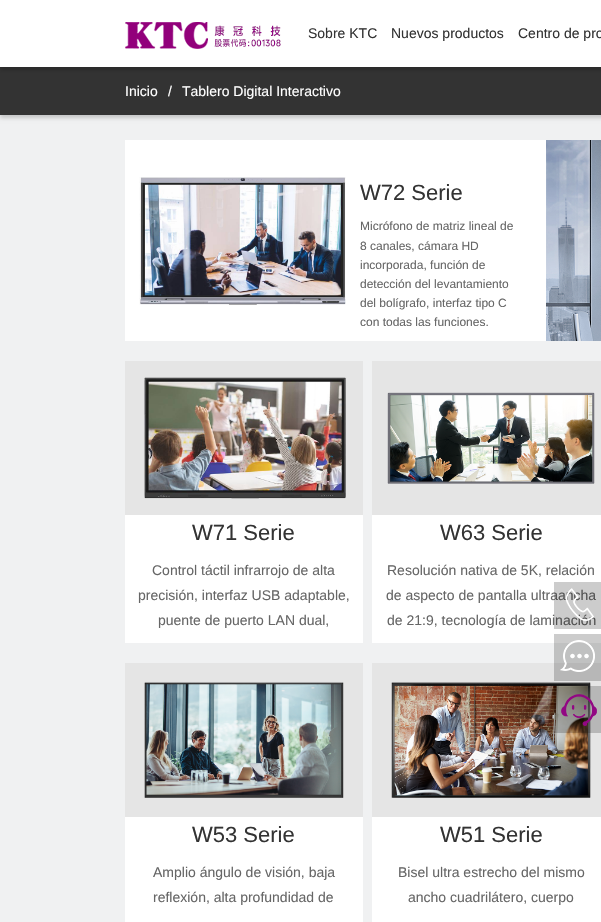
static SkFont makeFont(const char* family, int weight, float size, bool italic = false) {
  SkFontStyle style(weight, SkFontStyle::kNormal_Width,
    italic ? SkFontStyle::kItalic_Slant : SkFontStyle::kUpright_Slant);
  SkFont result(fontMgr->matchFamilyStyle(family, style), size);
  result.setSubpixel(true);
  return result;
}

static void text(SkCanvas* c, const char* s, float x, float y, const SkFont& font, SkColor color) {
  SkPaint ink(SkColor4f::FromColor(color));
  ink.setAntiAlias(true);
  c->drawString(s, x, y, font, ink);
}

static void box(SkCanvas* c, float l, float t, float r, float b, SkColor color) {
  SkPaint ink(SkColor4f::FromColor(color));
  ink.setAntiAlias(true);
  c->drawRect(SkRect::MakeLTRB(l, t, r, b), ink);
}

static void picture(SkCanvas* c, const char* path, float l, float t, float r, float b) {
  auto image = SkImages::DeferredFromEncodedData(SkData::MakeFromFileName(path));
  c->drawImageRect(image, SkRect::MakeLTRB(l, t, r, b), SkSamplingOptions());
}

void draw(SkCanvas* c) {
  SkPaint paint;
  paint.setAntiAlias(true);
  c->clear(0xfff0f1f2);
  paint.setColor(0x2e000000);
  paint.setMaskFilter(SkMaskFilter::MakeBlur(kNormal_SkBlurStyle, 2));
  c->drawRect(SkRect::MakeLTRB(0, 70, 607, 118), paint);
  paint.setMaskFilter(nullptr);
  box(c, 0, 67, 601, 115, 0xff333333);
  paint.setMaskFilter(SkMaskFilter::MakeBlur(kNormal_SkBlurStyle, 2));
  c->drawRect(SkRect::MakeLTRB(0, 3, 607, 70), paint);
  paint.setMaskFilter(nullptr);
  box(c, 0, 0, 601, 67, 0xffffffff);
  picture(c, "img_01.png", 125, 22, 281, 49);
  SkFont face1 = makeFont("Liberation Sans", 400, 14);
  text(c, "Sobre KTC", 308, 38, face1, 0xff333333);
  text(c, "Nuevos productos", 391, 38, face1, 0xff333333);
  text(c, "Centro de pro", 518, 38, face1, 0xff333333);
  text(c, "Inicio", 125, 96, face1, 0xffffffff);
  text(c, "/", 168, 96, face1, 0xffffffff);
  text(c, "Tablero Digital Interactivo", 182, 96, face1, 0xffffffff);
  box(c, 125, 140, 546, 341, 0xffffffff);
  picture(c, "img_02.png", 139, 177, 346, 305);
  SkFont face2 = makeFont("Liberation Sans", 400, 22);
  text(c, "W72 Serie", 360, 200, face2, 0xff333333);
  SkFont face3 = makeFont("Liberation Sans", 400, 12);
  text(c, "Micrófono de matriz lineal de", 360, 230, face3, 0xff666666);
  text(c, "8 canales, cámara HD", 360, 250, face3, 0xff666666);
  text(c, "incorporada, función de", 360, 269, face3, 0xff666666);
  text(c, "detección del levantamiento", 360, 288, face3, 0xff666666);
  text(c, "del bolígrafo, interfaz tipo C", 360, 307, face3, 0xff666666);
  text(c, "con todas las funciones.", 360, 326, face3, 0xff666666);
  picture(c, "img_03.png", 546, 140, 601, 341);
  box(c, 125, 515, 363, 643, 0xffffffff);
  picture(c, "img_04.png", 125, 361, 363, 515);
  text(c, "W71 Serie", 192, 540, face2, 0xff333333);
  text(c, "Control táctil infrarrojo de alta", 152, 575, face1, 0xff666666);
  text(c, "precisión, interfaz USB adaptable,", 138, 600, face1, 0xff666666);
  text(c, "puente de puerto LAN dual,", 158, 625, face1, 0xff666666);
  box(c, 372, 515, 601, 643, 0xffffffff);
  picture(c, "img_05.png", 372, 361, 601, 515);
  text(c, "W63 Serie", 440, 540, face2, 0xff333333);
  text(c, "Resolución nativa de 5K, relación", 387, 575, face1, 0xff666666);
  text(c, "de aspecto de pantalla ultraancha", 386, 600, face1, 0xff666666);
  text(c, "de 21:9, tecnología de laminación", 387, 625, face1, 0xff666666);
  box(c, 125, 817, 363, 922, 0xffffffff);
  picture(c, "img_06.png", 125, 663, 363, 817);
  text(c, "W53 Serie", 192, 842, face2, 0xff333333);
  text(c, "Amplio ángulo de visión, baja", 153, 877, face1, 0xff666666);
  text(c, "reflexión, alta profundidad de", 153, 902, face1, 0xff666666);
  box(c, 372, 817, 601, 922, 0xffffffff);
  picture(c, "img_07.png", 372, 663, 601, 817);
  text(c, "W51 Serie", 440, 842, face2, 0xff333333);
  text(c, "Bisel ultra estrecho del mismo", 398, 877, face1, 0xff666666);
  text(c, "ancho cuadrilátero, cuerpo", 408, 902, face1, 0xff666666);
  box(c, 554, 582, 601, 629, 0x33000000);
  picture(c, "img_08.png", 565, 588, 594, 621);
  box(c, 554, 634, 601, 681, 0x33000000);
  picture(c, "img_09.png", 560, 640, 595, 672);
  box(c, 554, 686, 601, 733, 0x33000000);
  picture(c, "img_10.png", 561, 694, 597, 726);
}
